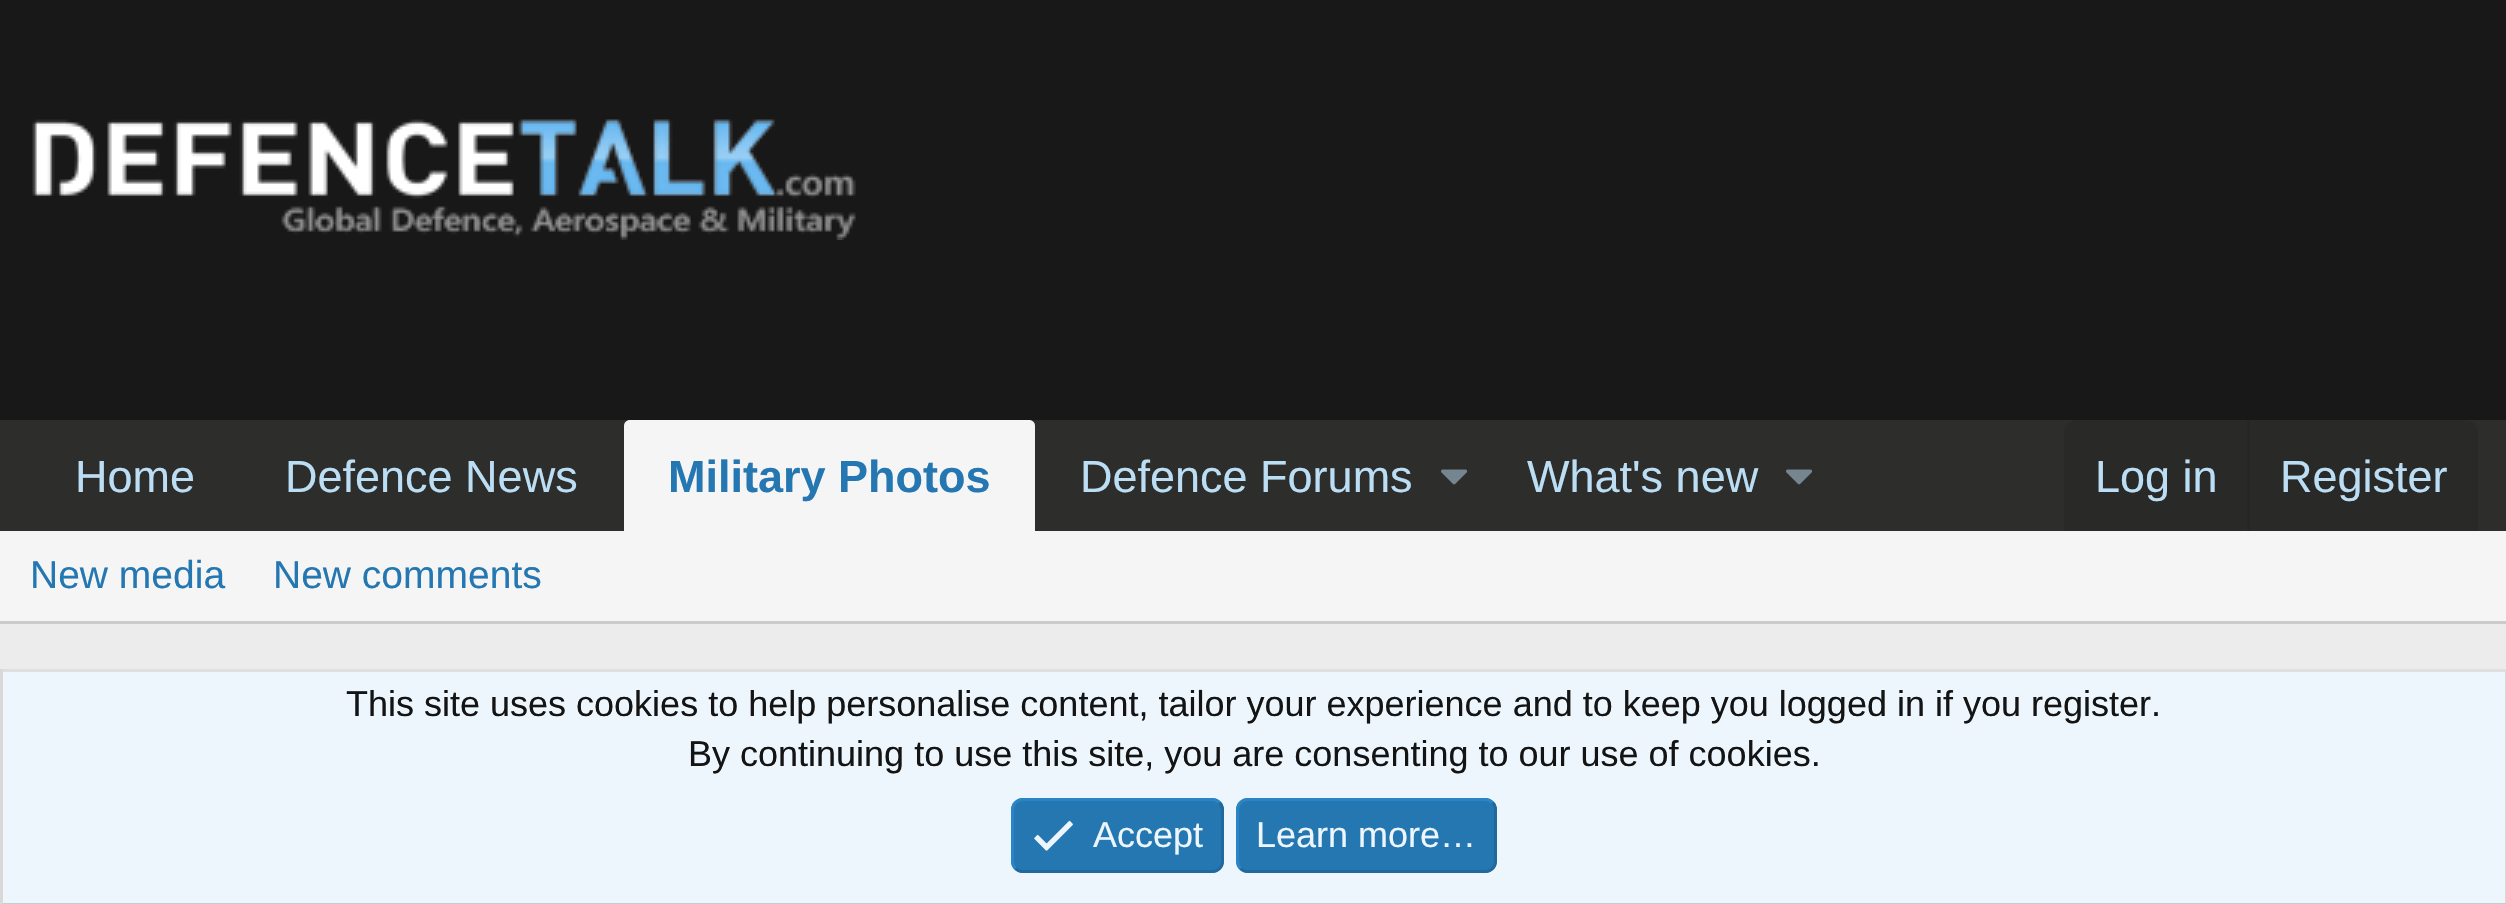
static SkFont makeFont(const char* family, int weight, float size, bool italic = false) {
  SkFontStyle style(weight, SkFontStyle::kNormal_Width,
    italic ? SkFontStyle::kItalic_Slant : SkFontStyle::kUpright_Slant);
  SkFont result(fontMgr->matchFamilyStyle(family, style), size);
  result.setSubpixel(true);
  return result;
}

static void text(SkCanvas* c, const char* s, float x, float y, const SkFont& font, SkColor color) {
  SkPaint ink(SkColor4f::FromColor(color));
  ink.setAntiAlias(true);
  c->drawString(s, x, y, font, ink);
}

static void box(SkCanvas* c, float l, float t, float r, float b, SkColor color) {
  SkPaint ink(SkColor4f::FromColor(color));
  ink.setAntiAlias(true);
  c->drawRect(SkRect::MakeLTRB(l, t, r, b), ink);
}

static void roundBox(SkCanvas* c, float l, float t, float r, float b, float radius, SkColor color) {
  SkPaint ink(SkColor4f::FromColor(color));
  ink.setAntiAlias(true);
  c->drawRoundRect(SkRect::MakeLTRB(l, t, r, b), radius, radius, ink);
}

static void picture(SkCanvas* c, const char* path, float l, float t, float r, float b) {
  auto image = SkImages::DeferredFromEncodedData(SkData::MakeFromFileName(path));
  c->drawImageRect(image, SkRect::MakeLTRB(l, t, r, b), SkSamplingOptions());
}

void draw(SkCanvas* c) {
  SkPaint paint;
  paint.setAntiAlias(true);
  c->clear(0xffececec);
  box(c, 0, 0, 2506, 420, 0xff191818);
  picture(c, "img_01.png", 32, 119, 856, 240);
  box(c, 0, 420, 2506, 531, 0xff2d2d2b);
  SkFont face1 = makeFont("Liberation Sans", 400, 45);
  text(c, "Home", 75, 492, face1, 0xffbcdef5);
  text(c, "Defence News", 285, 492, face1, 0xffbcdef5);
  paint.setColor(0xfff5f5f5);
  c->drawPath(SkPathBuilder().moveTo(630, 420).lineTo(1029, 420).cubicTo(1032.5f, 420, 1035, 422.5f, 1035, 426).lineTo(1035, 531).lineTo(624, 531).lineTo(624, 426).cubicTo(624, 422.5f, 626.5f, 420, 630, 420).close().detach(), paint);
  SkFont face2 = makeFont("Liberation Sans", 700, 45);
  text(c, "Military Photos", 668, 492, face2, 0xff2577b1);
  text(c, "Defence Forums", 1080, 492, face1, 0xffbcdef5);
  picture(c, "img_02.png", 1441, 469, 1468, 485);
  text(c, "What's new", 1527, 492, face1, 0xffbcdef5);
  picture(c, "img_02.png", 1786, 469, 1813, 485);
  paint.setColor(0xff292928);
  c->drawPath(SkPathBuilder().moveTo(2076, 420).lineTo(2466, 420).cubicTo(2472.5f, 420, 2478, 425.5f, 2478, 432).lineTo(2478, 531).lineTo(2064, 531).lineTo(2064, 432).cubicTo(2064, 425.5f, 2069.5f, 420, 2076, 420).close().detach(), paint);
  text(c, "Log in", 2095, 492, face1, 0xffbcdef5);
  box(c, 2247, 420, 2250, 531, 0xff262625);
  text(c, "Register", 2280, 492, face1, 0xffbcdef5);
  box(c, 0, 531, 2506, 621, 0xfff5f5f5);
  box(c, 0, 621, 2506, 624, 0xffcbcbcb);
  SkFont face3 = makeFont("Liberation Sans", 400, 39);
  text(c, "New media", 30, 588, face3, 0xff2577b1);
  text(c, "New comments", 273, 588, face3, 0xff2577b1);
  box(c, 3, 672, 2505, 903, 0xffedf6fd);
  box(c, 0, 669, 2506, 672, 0xffdfdfdf);
  box(c, 2505, 669, 2506, 904, 0xffd8d8d8);
  box(c, 0, 903, 2506, 904, 0xffcbcbcb);
  box(c, 0, 669, 3, 904, 0xffd8d8d8);
  SkFont face4 = makeFont("Liberation Sans", 400, 36);
  text(c, "This site uses cookies to help personalise content, tailor your experience and to keep you logged in if you register.", 346, 716, face4, 0xff141414);
  text(c, "By continuing to use this site, you are consenting to our use of cookies.", 688, 766, face4, 0xff141414);
  roundBox(c, 1011, 798, 1224, 873, 12, 0xff2577b1);
  paint.setStyle(SkPaint::kStroke_Style);
  paint.setStrokeWidth(3);
  paint.setColor(0xff21699c);
  c->drawPath(SkPathBuilder().moveTo(1219.5f, 802.5f).cubicTo(1221.5f, 804.5f, 1222.5f, 807, 1222.5f, 810).lineTo(1222.5f, 861).cubicTo(1222.5f, 864, 1221.5f, 866.5f, 1219.5f, 868.5f).cubicTo(1217.5f, 870.5f, 1215, 871.5f, 1212, 871.5f).lineTo(1023, 871.5f).cubicTo(1020, 871.5f, 1017.5f, 870.5f, 1015.5f, 868.5f).detach(), paint);
  paint.setColor(0xff2985c6);
  c->drawPath(SkPathBuilder().moveTo(1015.5f, 868.5f).cubicTo(1013.5f, 866.5f, 1012.5f, 864, 1012.5f, 861).lineTo(1012.5f, 810).cubicTo(1012.5f, 807, 1013.5f, 804.5f, 1015.5f, 802.5f).cubicTo(1017.5f, 800.5f, 1020, 799.5f, 1023, 799.5f).lineTo(1212, 799.5f).cubicTo(1215, 799.5f, 1217.5f, 800.5f, 1219.5f, 802.5f).detach(), paint);
  picture(c, "img_03.png", 1034, 820, 1073, 851);
  text(c, "Accept", 1093, 847, face4, 0xffedf6fd);
  roundBox(c, 1236, 798, 1497, 873, 12, 0xff2577b1);
  paint.setColor(0xff21699c);
  c->drawPath(SkPathBuilder().moveTo(1492.5f, 802.5f).cubicTo(1494.5f, 804.5f, 1495.5f, 807, 1495.5f, 810).lineTo(1495.5f, 861).cubicTo(1495.5f, 864, 1494.5f, 866.5f, 1492.5f, 868.5f).cubicTo(1490.5f, 870.5f, 1488, 871.5f, 1485, 871.5f).lineTo(1248, 871.5f).cubicTo(1245, 871.5f, 1242.5f, 870.5f, 1240.5f, 868.5f).detach(), paint);
  paint.setColor(0xff2985c6);
  c->drawPath(SkPathBuilder().moveTo(1240.5f, 868.5f).cubicTo(1238.5f, 866.5f, 1237.5f, 864, 1237.5f, 861).lineTo(1237.5f, 810).cubicTo(1237.5f, 807, 1238.5f, 804.5f, 1240.5f, 802.5f).cubicTo(1242.5f, 800.5f, 1245, 799.5f, 1248, 799.5f).lineTo(1485, 799.5f).cubicTo(1488, 799.5f, 1490.5f, 800.5f, 1492.5f, 802.5f).detach(), paint);
  text(c, "Learn more…", 1256, 847, face4, 0xffedf6fd);
}
